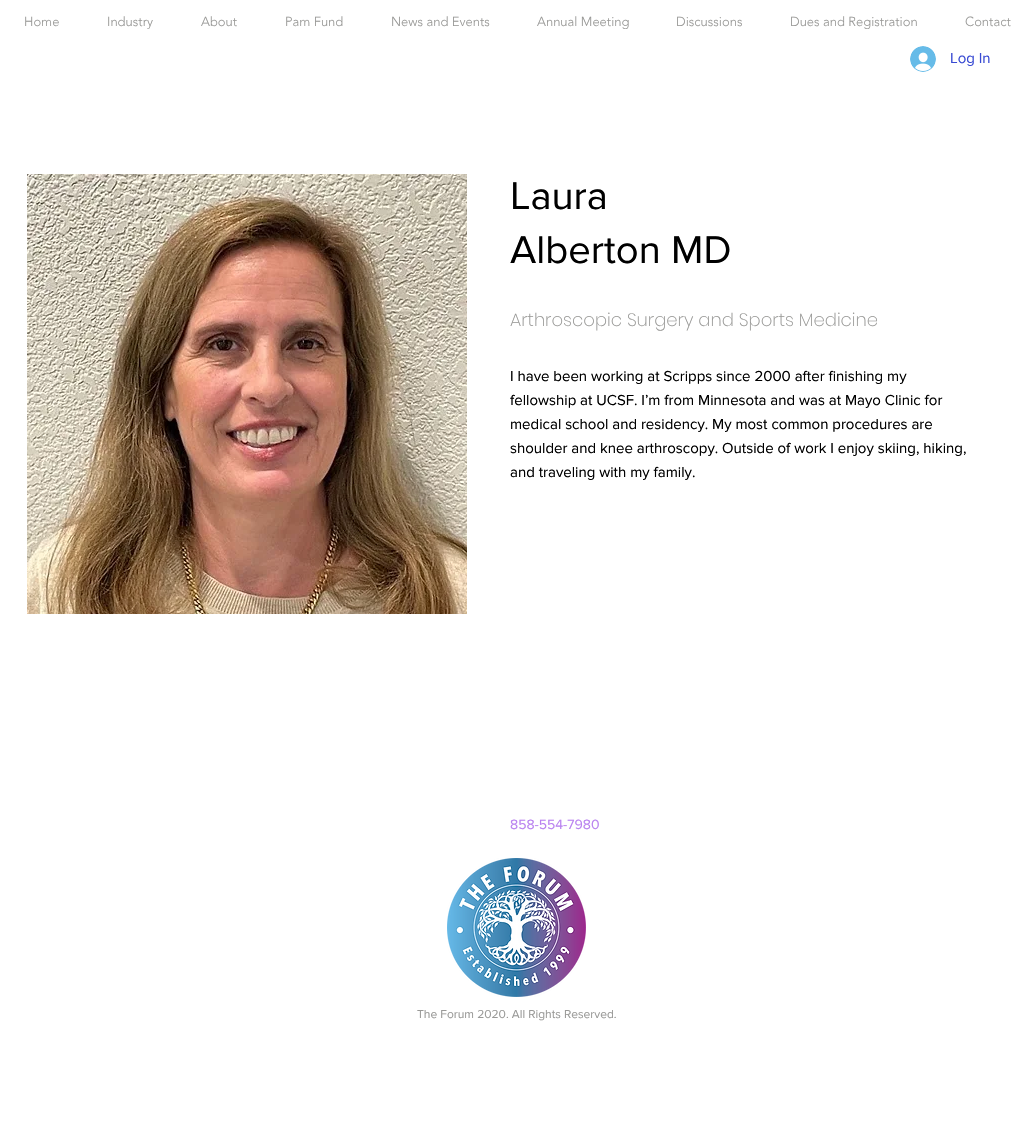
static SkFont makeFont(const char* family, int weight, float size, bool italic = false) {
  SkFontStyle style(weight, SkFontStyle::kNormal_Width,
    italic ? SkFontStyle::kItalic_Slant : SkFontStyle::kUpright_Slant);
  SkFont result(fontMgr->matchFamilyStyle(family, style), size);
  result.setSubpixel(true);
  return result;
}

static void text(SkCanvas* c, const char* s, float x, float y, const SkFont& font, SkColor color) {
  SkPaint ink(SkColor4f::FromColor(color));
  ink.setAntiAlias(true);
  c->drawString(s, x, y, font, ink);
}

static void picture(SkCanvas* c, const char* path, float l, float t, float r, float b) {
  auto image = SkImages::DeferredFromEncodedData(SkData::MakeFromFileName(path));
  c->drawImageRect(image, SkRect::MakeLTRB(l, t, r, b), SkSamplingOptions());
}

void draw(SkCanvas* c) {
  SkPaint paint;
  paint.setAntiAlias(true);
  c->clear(0xffffffff);
  SkFont face1 = makeFont("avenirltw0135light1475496", 300, 13);
  text(c, "Home", 24, 26, face1, 0xff999997);
  text(c, "Industry", 107, 26, face1, 0xff999997);
  text(c, "About", 201, 26, face1, 0xff999997);
  text(c, "Pam Fund", 285, 26, face1, 0xff999997);
  text(c, "News and Events", 391, 26, face1, 0xff999997);
  text(c, "Annual Meeting", 537, 26, face1, 0xff999997);
  text(c, "Discussions", 676, 26, face1, 0xff999997);
  text(c, "Dues and Registration", 790, 26, face1, 0xff999997);
  text(c, "Contact", 965, 26, face1, 0xff999997);
  picture(c, "img_01.png", 910, 46, 936, 72);
  SkFont face2 = makeFont("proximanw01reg", 400, 15);
  text(c, "Log In", 950, 63, face2, 0xff384ad3);
  picture(c, "img_02.png", 27, 174, 467, 614);
  SkFont face3 = makeFont("proximanw01reg", 400, 40);
  text(c, "Laura", 510, 209, face3, 0xff000000);
  text(c, "Alberton MD", 510, 263, face3, 0xff000000);
  SkFont face4 = makeFont("Poppins", 200, 18);
  text(c, "Arthroscopic Surgery and Sports Medicine", 510, 326, face4, 0xff999997);
  text(c, "I have been working at Scripps since 2000 after finishing my", 510, 381, face2, 0xff000000);
  text(c, "fellowship at UCSF. I’m from Minnesota and was at Mayo Clinic for", 510, 405, face2, 0xff000000);
  text(c, "medical school and residency. My most common procedures are", 510, 429, face2, 0xff000000);
  text(c, "shoulder and knee arthroscopy. Outside of work I enjoy skiing, hiking,", 510, 453, face2, 0xff000000);
  text(c, "and traveling with my family.", 510, 477, face2, 0xff000000);
  SkFont face5 = makeFont("proximanw01reg", 400, 14);
  text(c, "858-554-7980", 510, 829, face5, 0xffba83f0);
  picture(c, "img_03.png", 447, 858, 586, 997);
  SkFont face6 = makeFont("proximanw01reg", 400, 12);
  text(c, "The Forum 2020. All Rights Reserved.", 417, 1018, face6, 0xff999997);
}
